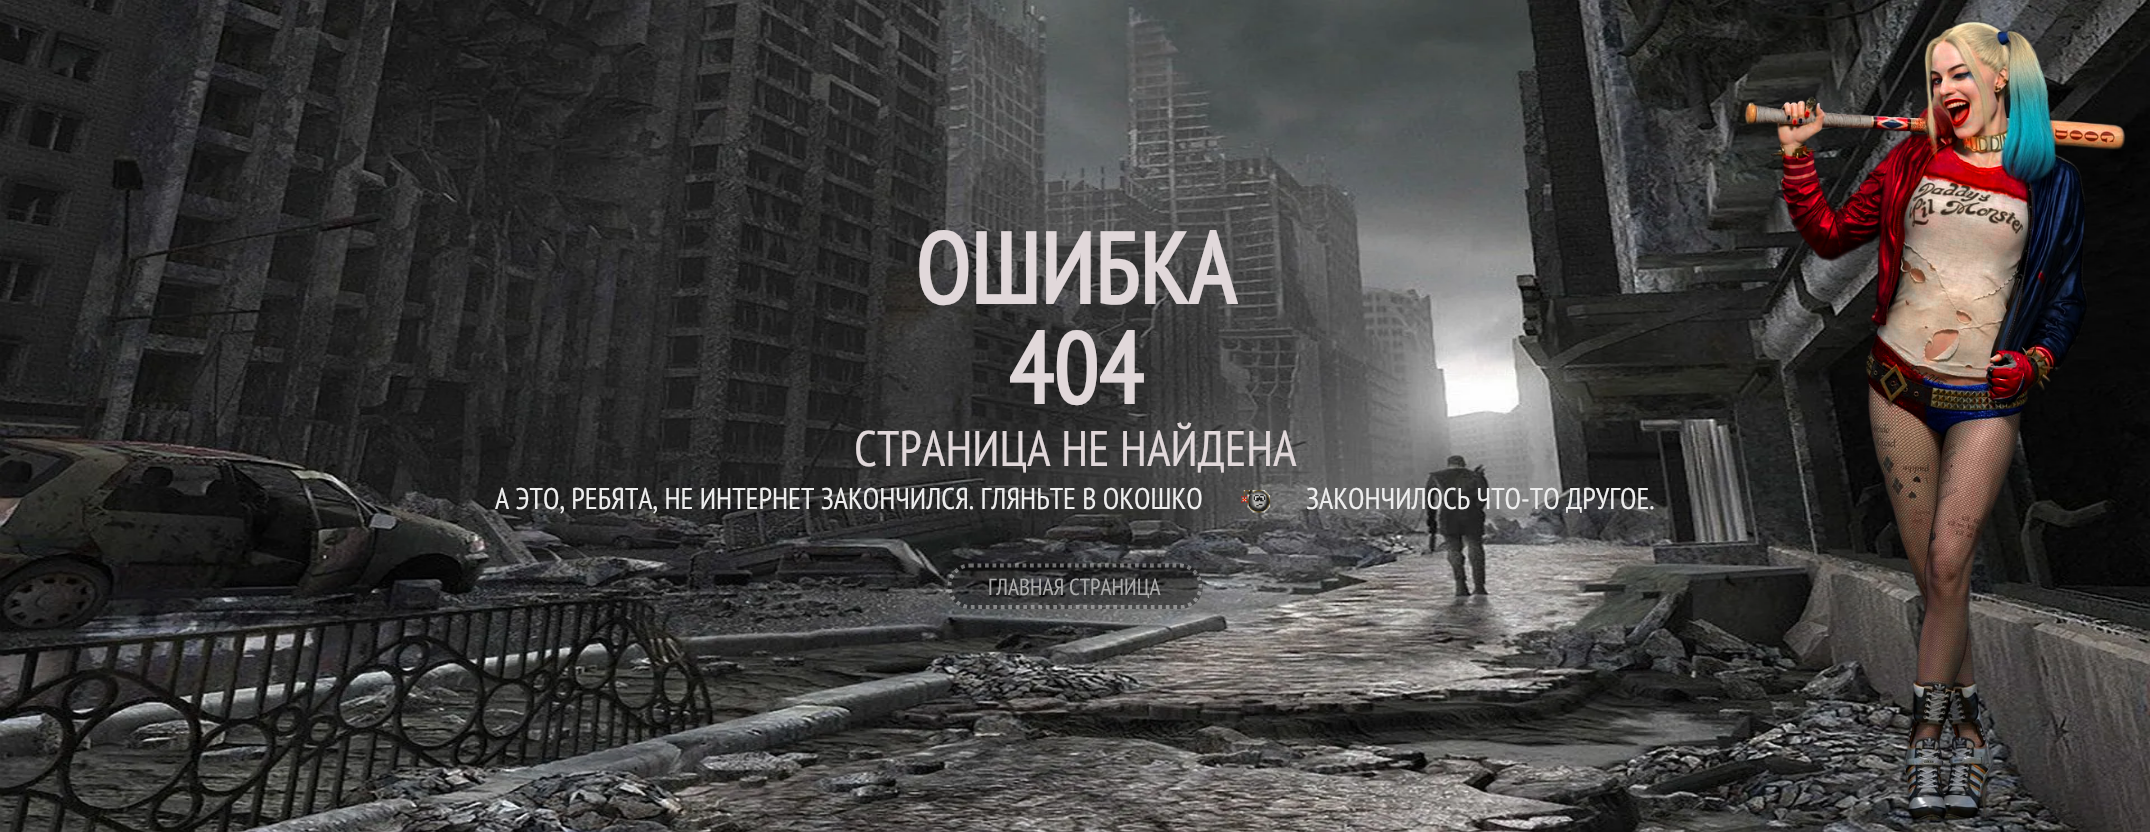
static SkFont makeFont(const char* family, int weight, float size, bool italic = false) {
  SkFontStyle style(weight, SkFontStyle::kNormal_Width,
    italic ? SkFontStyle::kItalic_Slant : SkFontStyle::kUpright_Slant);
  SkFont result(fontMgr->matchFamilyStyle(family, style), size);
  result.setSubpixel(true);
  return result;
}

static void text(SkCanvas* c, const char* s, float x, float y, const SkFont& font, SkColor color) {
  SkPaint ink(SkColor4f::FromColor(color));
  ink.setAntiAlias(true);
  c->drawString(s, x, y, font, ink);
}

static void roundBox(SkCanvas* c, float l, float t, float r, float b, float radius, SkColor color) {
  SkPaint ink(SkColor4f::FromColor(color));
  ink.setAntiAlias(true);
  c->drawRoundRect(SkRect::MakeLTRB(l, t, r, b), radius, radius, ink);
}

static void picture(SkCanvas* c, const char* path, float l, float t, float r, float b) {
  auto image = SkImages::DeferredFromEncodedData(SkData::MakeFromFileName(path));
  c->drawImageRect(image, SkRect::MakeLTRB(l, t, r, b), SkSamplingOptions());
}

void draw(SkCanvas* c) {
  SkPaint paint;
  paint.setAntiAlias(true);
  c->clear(0xffffffff);
  picture(c, "img_01.png", 0, 0, 2150, 832);
  SkFont face1 = makeFont("PT Sans Narrow", 700, 100);
  text(c, "ОШИБКА", 915, 304, face1, 0xffe1d8da);
  text(c, "404", 1008, 404, face1, 0xffe1d8da);
  SkFont face2 = makeFont("PT Sans Narrow", 400, 50);
  text(c, "СТРАНИЦА НЕ НАЙДЕНА", 854, 466, face2, 0xffe1d8da);
  SkFont face3 = makeFont("PT Sans Narrow", 400, 30);
  text(c, "А ЭТО, РЕБЯТА, НЕ ИНТЕРНЕТ ЗАКОНЧИЛСЯ. ГЛЯНЬТЕ В ОКОШКО", 495, 509, face3, 0xffeeeeee);
  picture(c, "img_02.png", 1241, 489, 1271, 513);
  text(c, "ЗАКОНЧИЛОСЬ ЧТО-ТО ДРУГОЕ.", 1306, 509, face3, 0xffeeeeee);
  roundBox(c, 948, 564, 1203, 609, 22.5f, 0x66000000);
  paint.setStyle(SkPaint::kStroke_Style);
  paint.setStrokeWidth(3.8f);
  paint.setColor(0x66ffffff);
  paint.setPathEffect(SkDashPathEffect::Make({{3.75f, 3.75f}}, 0));
  c->drawPath(SkPathBuilder().moveTo(970, 565.5f).lineTo(1180, 565.5f).cubicTo(1191.5f, 565.5f, 1200.5f, 575, 1200.5f, 586).cubicTo(1200.5f, 597.5f, 1191.5f, 607, 1180, 607).lineTo(970, 607).cubicTo(958.5f, 607, 949.5f, 597.5f, 949.5f, 586).cubicTo(949.5f, 575, 958.5f, 565.5f, 970, 565.5f).close().detach(), paint);
  paint.setPathEffect(nullptr);
  SkFont face4 = makeFont("PT Sans Narrow", 400, 23.25f);
  text(c, "ГЛАВНАЯ СТРАНИЦА", 988, 595, face4, 0xffadadad);
}
